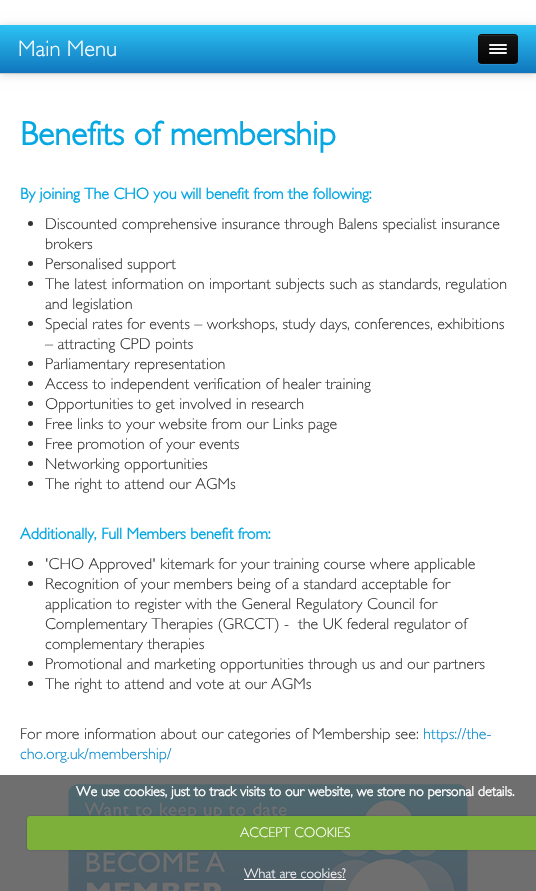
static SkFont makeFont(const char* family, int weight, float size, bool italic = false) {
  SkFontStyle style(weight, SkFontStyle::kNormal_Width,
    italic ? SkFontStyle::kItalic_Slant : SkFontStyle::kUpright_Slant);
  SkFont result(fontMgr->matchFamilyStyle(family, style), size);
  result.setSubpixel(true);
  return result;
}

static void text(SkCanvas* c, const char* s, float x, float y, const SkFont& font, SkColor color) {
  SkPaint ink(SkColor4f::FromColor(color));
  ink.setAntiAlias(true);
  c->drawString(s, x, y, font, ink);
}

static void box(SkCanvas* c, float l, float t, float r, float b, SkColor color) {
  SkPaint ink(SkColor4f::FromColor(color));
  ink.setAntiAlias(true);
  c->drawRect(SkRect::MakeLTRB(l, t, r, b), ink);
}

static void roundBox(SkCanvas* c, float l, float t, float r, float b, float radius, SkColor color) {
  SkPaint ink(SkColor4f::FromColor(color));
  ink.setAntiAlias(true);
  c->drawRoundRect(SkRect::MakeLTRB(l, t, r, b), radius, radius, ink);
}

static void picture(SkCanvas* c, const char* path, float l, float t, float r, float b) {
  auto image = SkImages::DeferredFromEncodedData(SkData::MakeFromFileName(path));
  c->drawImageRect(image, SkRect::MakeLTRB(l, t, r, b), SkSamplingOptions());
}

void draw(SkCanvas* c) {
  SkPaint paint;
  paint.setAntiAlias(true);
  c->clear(0xffffffff);
  box(c, 0, 775, 536, 891, 0xff6f6f6f);
  paint.setColor(0x1a000000);
  paint.setMaskFilter(SkMaskFilter::MakeBlur(kNormal_SkBlurStyle, 5));
  c->drawRect(SkRect::MakeLTRB(0, 26, 536, 75), paint);
  paint.setMaskFilter(nullptr);
  {
    const SkColor colors[] = {0xff2dc3f3, 0xff1076bd};
    const float stops[] = {0, 1};
    const SkPoint ends[] = {{268, 25}, {268, 73}};
    paint.setShader(SkGradientShader::MakeLinear(ends, colors, stops, 2, SkTileMode::kClamp));
    paint.setAlpha(255);
  }
  c->drawRect(SkRect::MakeLTRB(0, 25, 536, 73), paint);
  box(c, 0, 73, 536, 74, 0xffd4d4d4);
  paint.setShader(nullptr);
  paint.setColor(0x12000000);
  paint.setMaskFilter(SkMaskFilter::MakeBlur(kNormal_SkBlurStyle, 2));
  c->drawRoundRect(SkRect::MakeLTRB(0, 26, 536, 74), 4, 4, paint);
  paint.setMaskFilter(nullptr);
  {
    const SkColor colors[] = {0xff2dc3f3, 0xff1076bd};
    const float stops[] = {0, 1};
    const SkPoint ends[] = {{268, 25}, {268, 73}};
    paint.setShader(SkGradientShader::MakeLinear(ends, colors, stops, 2, SkTileMode::kClamp));
    paint.setAlpha(255);
  }
  c->drawRoundRect(SkRect::MakeLTRB(0, 25, 536, 73), 4, 4, paint);
  SkFont face1 = makeFont("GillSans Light", 300, 22.5f);
  text(c, "Main Menu", 18, 56, face1, 0xffffffff);
  paint.setShader(nullptr);
  paint.setColor(0xff278dcb);
  c->drawPath(SkPathBuilder().moveTo(478, 60).cubicTo(478, 66, 483, 65, 487, 65).lineTo(509, 65).cubicTo(513, 65, 518, 66, 518, 60).cubicTo(518, 62, 516, 64, 514, 64).lineTo(482, 64).cubicTo(480, 64, 478, 62, 478, 60).close().detach(), paint);
  roundBox(c, 478, 34, 518, 64, 4, 0xff0e0e0e);
  c->save();
  c->clipPath(SkPathBuilder().moveTo(482, 34).lineTo(514, 34).cubicTo(516, 34, 518, 36, 518, 38).lineTo(518, 60).cubicTo(518, 62, 516, 64, 514, 64).lineTo(482, 64).cubicTo(480, 64, 478, 62, 478, 60).lineTo(478, 38).cubicTo(478, 36, 480, 34, 482, 34).close().detach(), true);
  {
    const SkColor colors[] = {0xff151515, 0xff040404};
    const float stops[] = {0, 1};
    const SkPoint ends[] = {{498, 35}, {498, 63}};
    paint.setShader(SkGradientShader::MakeLinear(ends, colors, stops, 2, SkTileMode::kClamp));
    paint.setAlpha(255);
  }
  c->drawRect(SkRect::MakeLTRB(478, 35, 518, 63), paint);
  c->restore();
  paint.setShader(nullptr);
  paint.setColor(0xff2c2c2c);
  c->drawPath(SkPathBuilder().moveTo(482, 36).lineTo(514, 36).cubicTo(516, 36, 517, 37, 517, 39).cubicTo(517, 34, 513, 35, 508.5f, 35).lineTo(487.5f, 35).cubicTo(483, 35, 479, 34, 479, 39).cubicTo(479, 37, 480, 36, 482, 36).close().detach(), paint);
  paint.setStyle(SkPaint::kStroke_Style);
  paint.setStrokeWidth(1);
  paint.setColor(0x40000000);
  c->drawPath(SkPathBuilder().moveTo(516.5f, 62.5f).cubicTo(516, 63, 515, 63.5f, 514, 63.5f).lineTo(482, 63.5f).cubicTo(481, 63.5f, 480, 63, 479.5f, 62.5f).detach(), paint);
  paint.setColor(0x1a000000);
  c->drawPath(SkPathBuilder().moveTo(479.5f, 62.5f).cubicTo(479, 62, 478.5f, 61, 478.5f, 60).lineTo(478.5f, 38).cubicTo(478.5f, 37, 479, 36, 479.5f, 35.5f).cubicTo(480, 35, 481, 34.5f, 482, 34.5f).lineTo(514, 34.5f).cubicTo(515, 34.5f, 516, 35, 516.5f, 35.5f).cubicTo(517, 36, 517.5f, 37, 517.5f, 38).lineTo(517.5f, 60).cubicTo(517.5f, 61, 517, 62, 516.5f, 62.5f).detach(), paint);
  paint.setStyle(SkPaint::kFill_Style);
  paint.setColor(0xff0b0b0b);
  c->drawPath(SkPathBuilder().moveTo(489, 45.5f).cubicTo(488, 47.5f, 492.5f, 47, 492.5f, 47).lineTo(503.5f, 47).cubicTo(503.5f, 47, 508, 47.5f, 507, 45.5f).cubicTo(506, 46.5f, 499.5f, 46, 498, 46).cubicTo(496.5f, 46, 490, 46.5f, 489, 45.5f).close().detach(), paint);
  roundBox(c, 489, 44, 507, 46, 1, 0xfff5f5f5);
  paint.setColor(0xff090909);
  c->drawPath(SkPathBuilder().moveTo(489, 49.5f).cubicTo(488, 51.5f, 492.5f, 51, 492.5f, 51).lineTo(503.5f, 51).cubicTo(503.5f, 51, 508, 51.5f, 507, 49.5f).cubicTo(506, 50.5f, 499.5f, 50, 498, 50).cubicTo(496.5f, 50, 490, 50.5f, 489, 49.5f).close().detach(), paint);
  roundBox(c, 489, 48, 507, 50, 1, 0xfff5f5f5);
  roundBox(c, 489, 52, 507, 54, 1, 0xfff5f5f5);
  SkFont face2 = makeFont("GillSans Light", 700, 34);
  text(c, "Benefits of membership", 20, 145, face2, 0xff05a8e3);
  SkFont face3 = makeFont("GillSans Light", 700, 16);
  text(c, "By joining The CHO you will benefit from the following:", 20, 199, face3, 0xff05a8e3);
  paint.setColor(0xff333333);
  c->drawCircle(30.5f, 223.5f, 2.5f, paint);
  SkFont face4 = makeFont("GillSans Light", 300, 16);
  text(c, "Discounted comprehensive insurance through Balens specialist insurance", 45, 229, face4, 0xff333333);
  text(c, "brokers", 45, 249, face4, 0xff333333);
  c->drawCircle(30.5f, 263.5f, 2.5f, paint);
  text(c, "Personalised support", 45, 269, face4, 0xff333333);
  c->drawCircle(30.5f, 283.5f, 2.5f, paint);
  text(c, "The latest information on important subjects such as standards, regulation", 45, 289, face4, 0xff333333);
  text(c, "and legislation", 45, 309, face4, 0xff333333);
  c->drawCircle(30.5f, 323.5f, 2.5f, paint);
  text(c, "Special rates for events – workshops, study days, conferences, exhibitions", 45, 329, face4, 0xff333333);
  text(c, "– attracting CPD points", 45, 349, face4, 0xff333333);
  c->drawCircle(30.5f, 363.5f, 2.5f, paint);
  text(c, "Parliamentary representation", 45, 369, face4, 0xff333333);
  c->drawCircle(30.5f, 383.5f, 2.5f, paint);
  text(c, "Access to independent verification of healer training", 45, 389, face4, 0xff333333);
  c->drawCircle(30.5f, 403.5f, 2.5f, paint);
  text(c, "Opportunities to get involved in research", 45, 409, face4, 0xff333333);
  c->drawCircle(30.5f, 423.5f, 2.5f, paint);
  text(c, "Free links to your website from our Links page", 45, 429, face4, 0xff333333);
  c->drawCircle(30.5f, 443.5f, 2.5f, paint);
  text(c, "Free promotion of your events", 45, 449, face4, 0xff333333);
  c->drawCircle(30.5f, 463.5f, 2.5f, paint);
  text(c, "Networking opportunities", 45, 469, face4, 0xff333333);
  c->drawCircle(30.5f, 483.5f, 2.5f, paint);
  text(c, "The right to attend our AGMs", 45, 489, face4, 0xff333333);
  text(c, "Additionally, Full Members benefit from:", 20, 539, face3, 0xff05a8e3);
  c->drawCircle(30.5f, 563.5f, 2.5f, paint);
  text(c, "'CHO Approved' kitemark for your training course where applicable", 45, 569, face4, 0xff333333);
  c->drawCircle(30.5f, 583.5f, 2.5f, paint);
  text(c, "Recognition of your members being of a standard acceptable for", 45, 589, face4, 0xff333333);
  text(c, "application to register with the General Regulatory Council for", 45, 609, face4, 0xff333333);
  text(c, "Complementary Therapies (GRCCT) -  the UK federal regulator of", 45, 629, face4, 0xff333333);
  text(c, "complementary therapies", 45, 649, face4, 0xff333333);
  c->drawCircle(30.5f, 663.5f, 2.5f, paint);
  text(c, "Promotional and marketing opportunities through us and our partners", 45, 669, face4, 0xff333333);
  c->drawCircle(30.5f, 683.5f, 2.5f, paint);
  text(c, "The right to attend and vote at our AGMs", 45, 689, face4, 0xff333333);
  text(c, "For more information about our categories of Membership see:", 20, 739, face4, 0xff333333);
  text(c, "https://the-", 423, 739, face4, 0xff0088cc);
  text(c, "cho.org.uk/membership/", 20, 759, face4, 0xff0088cc);
  picture(c, "img_01.png", 68, 784, 468, 891);
  SkFont face5 = makeFont("GillSans Light", 700, 14);
  text(c, "We use cookies, just to track visits to our website, we store no personal details.", 76, 796, face5, 0xffffffff);
  paint.setColor(0x40000000);
  paint.setMaskFilter(SkMaskFilter::MakeBlur(kNormal_SkBlurStyle, 1));
  c->drawRoundRect(SkRect::MakeLTRB(27, 816, 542, 850), 3, 3, paint);
  paint.setMaskFilter(nullptr);
  roundBox(c, 27, 816, 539, 850, 3, 0xff7daf3b);
  SkFont face6 = makeFont("GillSans Light", 300, 14);
  text(c, "ACCEPT COOKIES", 240, 837, face6, 0xffffffff);
  text(c, "What are cookies?", 244, 878, face6, 0xffffffff);
  box(c, 244, 879, 346, 880, 0xffffffff);
}
